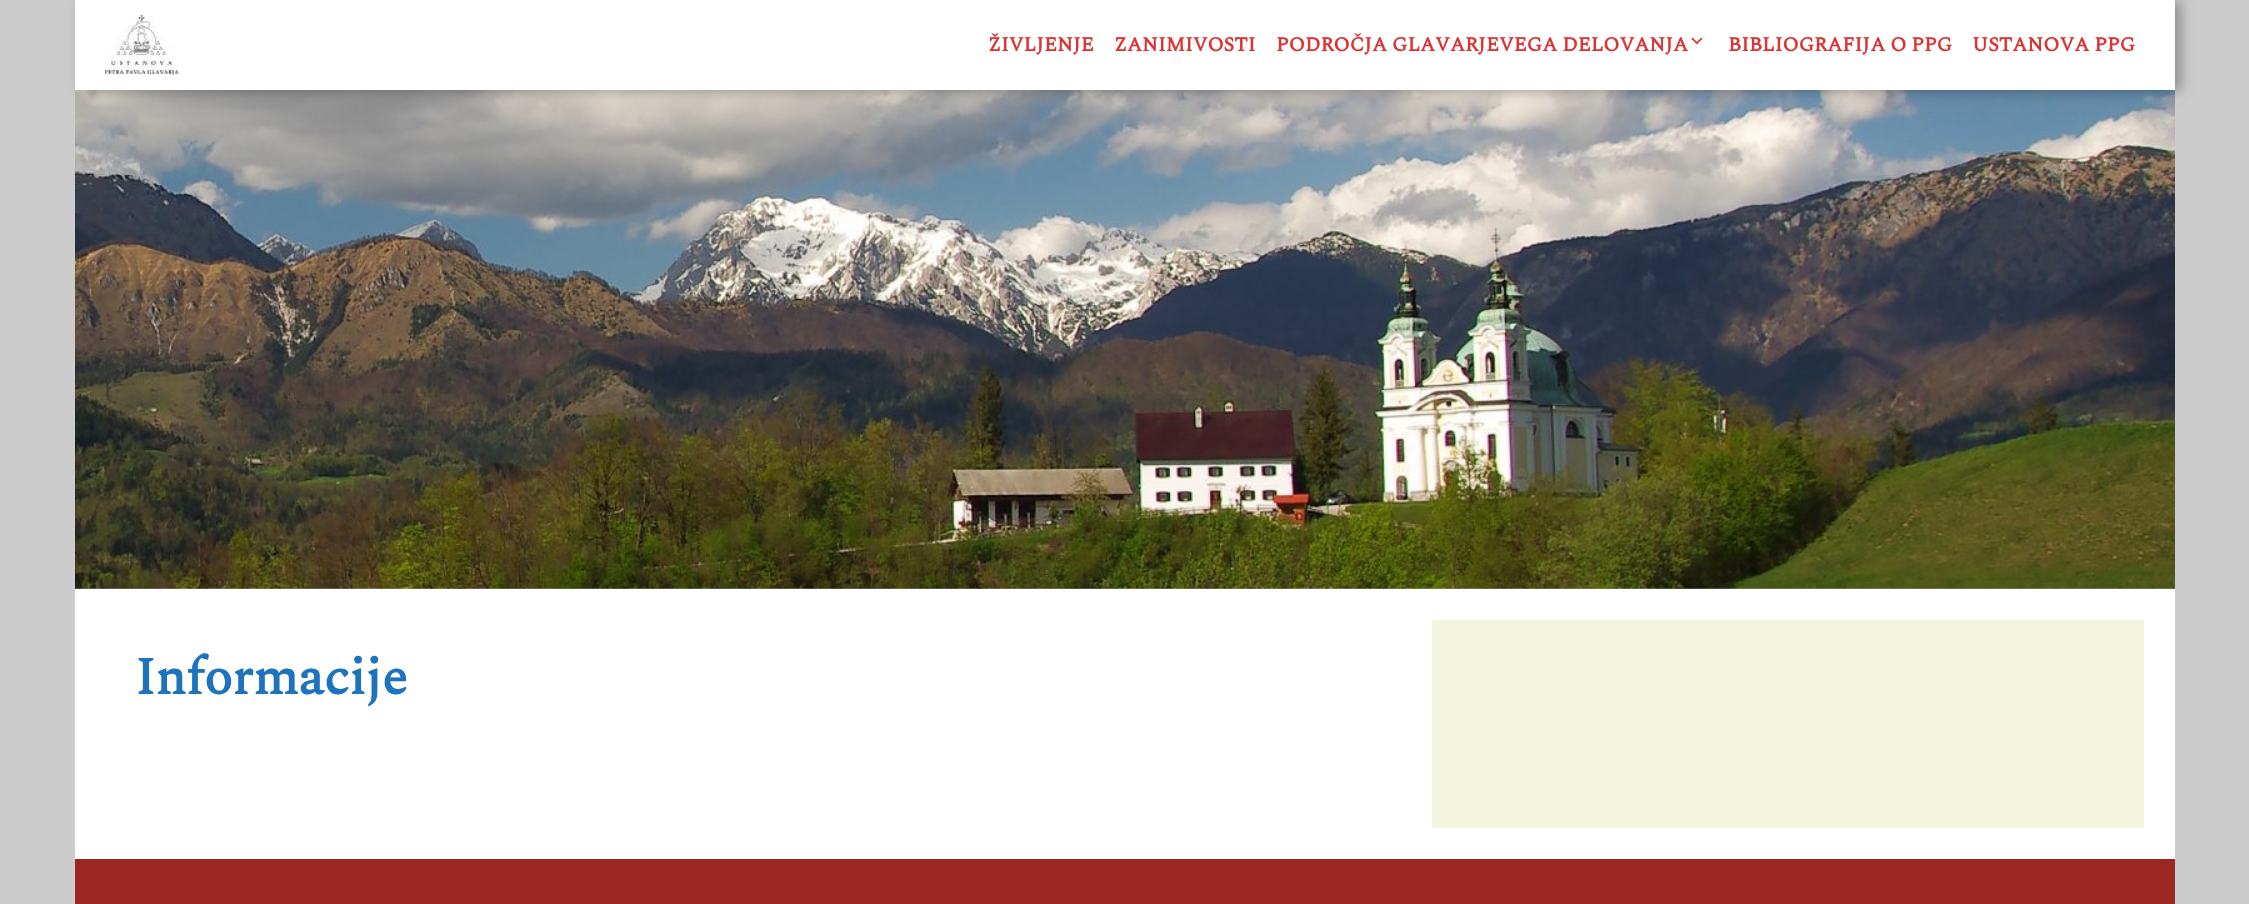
static SkFont makeFont(const char* family, int weight, float size, bool italic = false) {
  SkFontStyle style(weight, SkFontStyle::kNormal_Width,
    italic ? SkFontStyle::kItalic_Slant : SkFontStyle::kUpright_Slant);
  SkFont result(fontMgr->matchFamilyStyle(family, style), size);
  result.setSubpixel(true);
  return result;
}

static void text(SkCanvas* c, const char* s, float x, float y, const SkFont& font, SkColor color) {
  SkPaint ink(SkColor4f::FromColor(color));
  ink.setAntiAlias(true);
  c->drawString(s, x, y, font, ink);
}

static void box(SkCanvas* c, float l, float t, float r, float b, SkColor color) {
  SkPaint ink(SkColor4f::FromColor(color));
  ink.setAntiAlias(true);
  c->drawRect(SkRect::MakeLTRB(l, t, r, b), ink);
}

static void picture(SkCanvas* c, const char* path, float l, float t, float r, float b) {
  auto image = SkImages::DeferredFromEncodedData(SkData::MakeFromFileName(path));
  c->drawImageRect(image, SkRect::MakeLTRB(l, t, r, b), SkSamplingOptions());
}

void draw(SkCanvas* c) {
  SkPaint paint;
  paint.setAntiAlias(true);
  c->clear(0xffcccccc);
  picture(c, "img_03.png", 75, 90, 2175, 589);
  paint.setColor(0x4d000000);
  paint.setMaskFilter(SkMaskFilter::MakeBlur(kNormal_SkBlurStyle, 6));
  c->drawRect(SkRect::MakeLTRB(81, 1, 2181, 91), paint);
  paint.setMaskFilter(nullptr);
  box(c, 75, 0, 2175, 90, 0xffffffff);
  picture(c, "img_01.png", 105, 15, 179, 75);
  SkFont face1 = makeFont("Spectral", 700, 20);
  text(c, "ŽIVLJENJE", 988, 51, face1, 0xffdd3333);
  text(c, "ZANIMIVOSTI", 1114, 51, face1, 0xffdd3333);
  text(c, "PODROČJA GLAVARJEVEGA DELOVANJA", 1276, 51, face1, 0xffdd3333);
  picture(c, "img_02.png", 1691, 37, 1703, 45);
  text(c, "BIBLIOGRAFIJA O PPG", 1728, 51, face1, 0xffdd3333);
  text(c, "USTANOVA PPG", 1972, 51, face1, 0xffdd3333);
  box(c, 75, 589, 2175, 859, 0xffffffff);
  SkFont face2 = makeFont("Spectral", 700, 52.5f);
  text(c, "Informacije", 135, 694, face2, 0xff1e73be);
  box(c, 1432, 620, 2144, 828, 0xfff3f4de);
  box(c, 75, 859, 2175, 904, 0xff9b2723);
}
